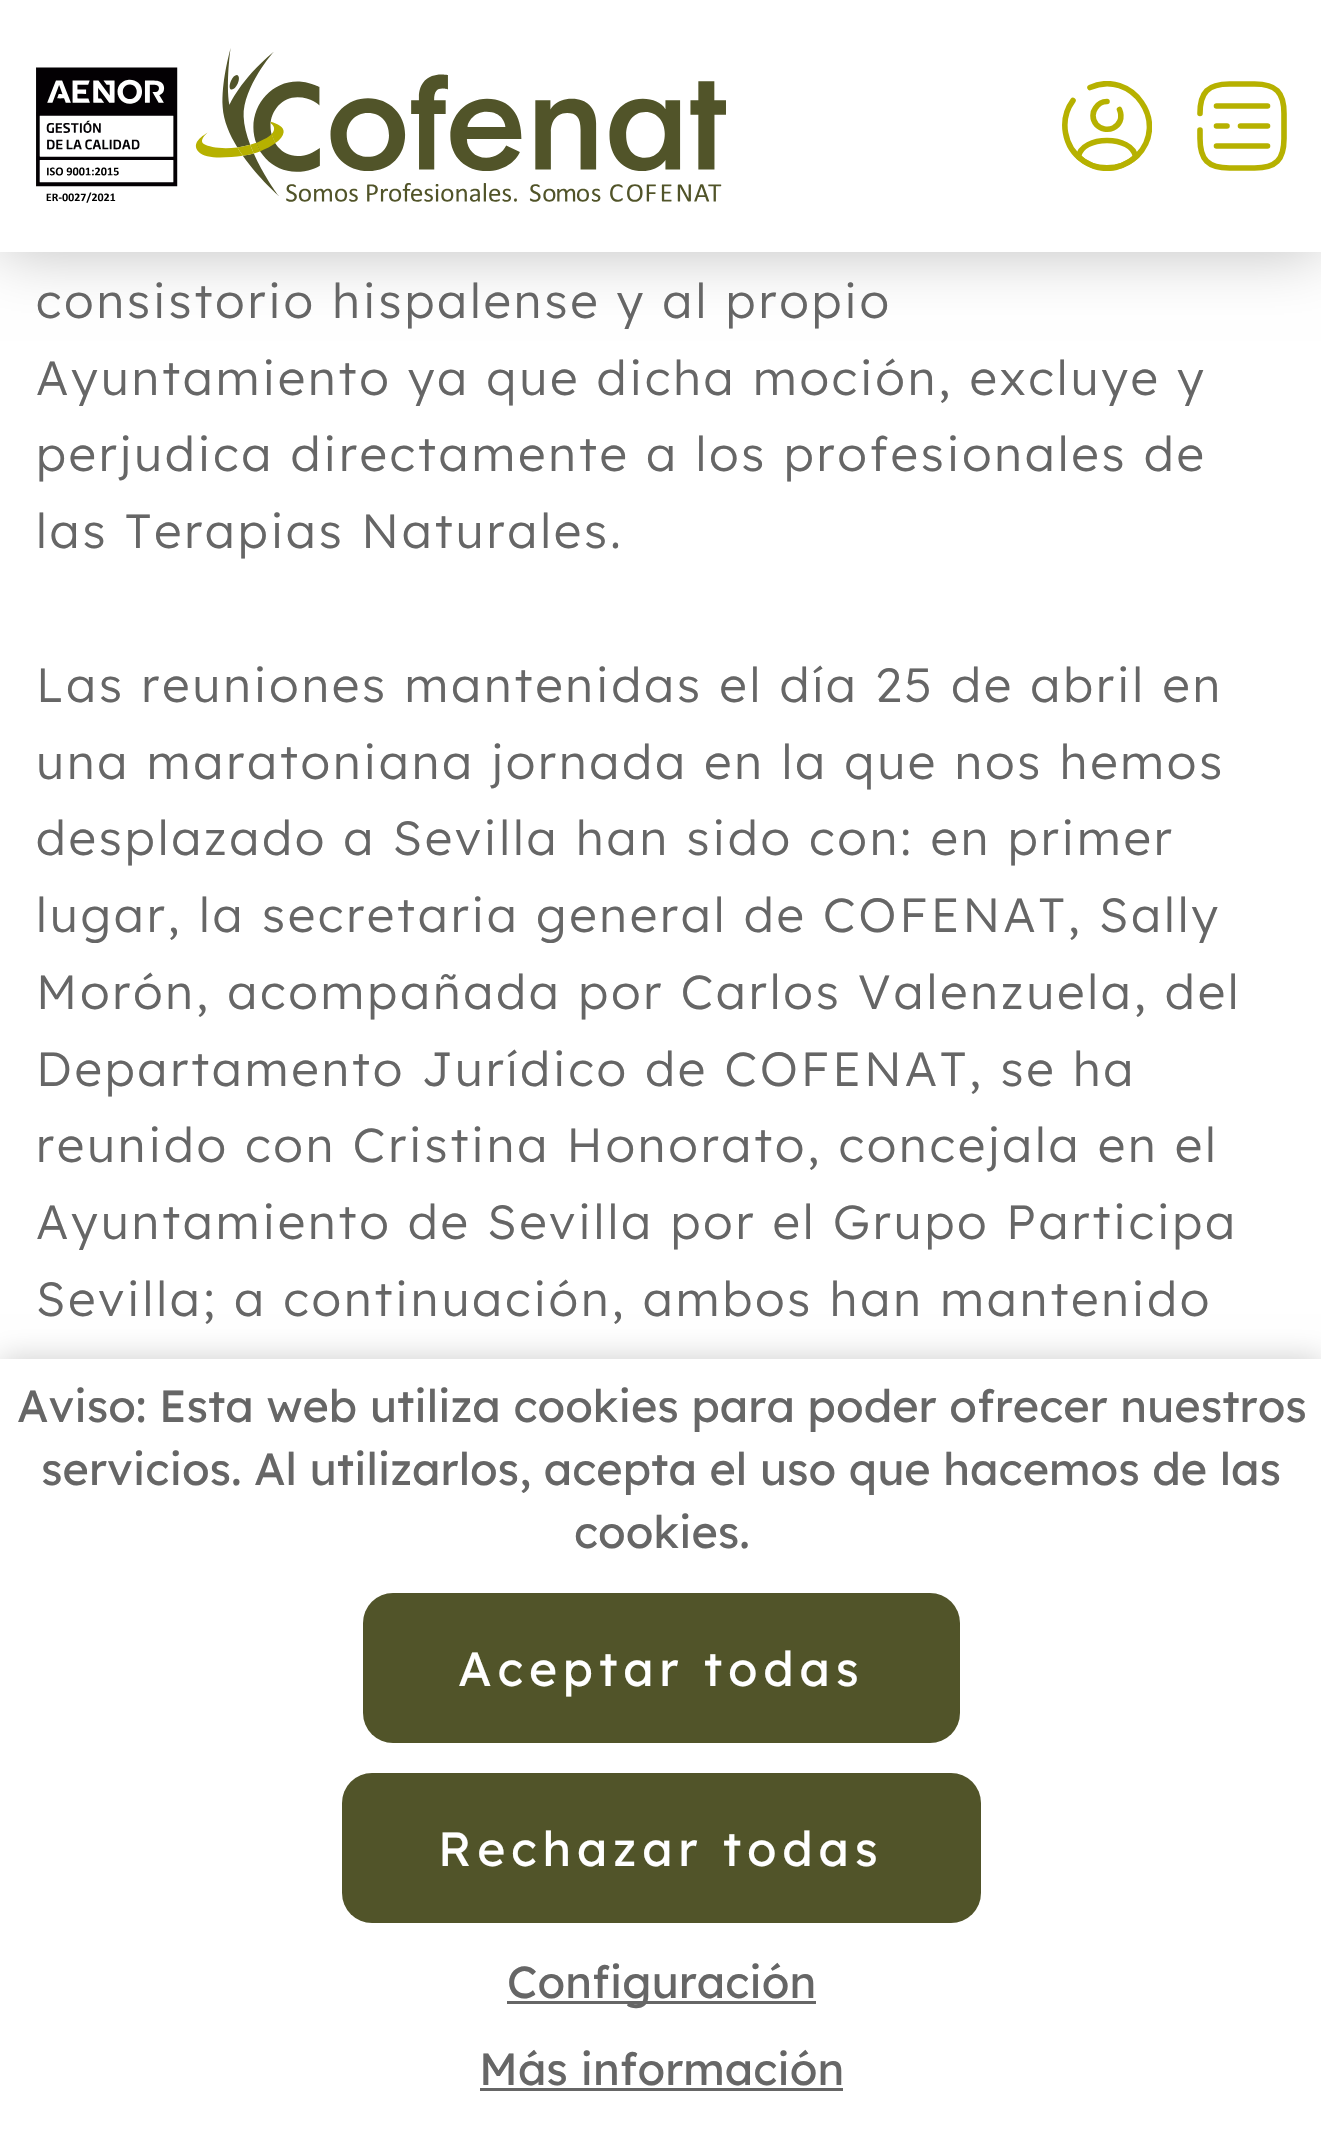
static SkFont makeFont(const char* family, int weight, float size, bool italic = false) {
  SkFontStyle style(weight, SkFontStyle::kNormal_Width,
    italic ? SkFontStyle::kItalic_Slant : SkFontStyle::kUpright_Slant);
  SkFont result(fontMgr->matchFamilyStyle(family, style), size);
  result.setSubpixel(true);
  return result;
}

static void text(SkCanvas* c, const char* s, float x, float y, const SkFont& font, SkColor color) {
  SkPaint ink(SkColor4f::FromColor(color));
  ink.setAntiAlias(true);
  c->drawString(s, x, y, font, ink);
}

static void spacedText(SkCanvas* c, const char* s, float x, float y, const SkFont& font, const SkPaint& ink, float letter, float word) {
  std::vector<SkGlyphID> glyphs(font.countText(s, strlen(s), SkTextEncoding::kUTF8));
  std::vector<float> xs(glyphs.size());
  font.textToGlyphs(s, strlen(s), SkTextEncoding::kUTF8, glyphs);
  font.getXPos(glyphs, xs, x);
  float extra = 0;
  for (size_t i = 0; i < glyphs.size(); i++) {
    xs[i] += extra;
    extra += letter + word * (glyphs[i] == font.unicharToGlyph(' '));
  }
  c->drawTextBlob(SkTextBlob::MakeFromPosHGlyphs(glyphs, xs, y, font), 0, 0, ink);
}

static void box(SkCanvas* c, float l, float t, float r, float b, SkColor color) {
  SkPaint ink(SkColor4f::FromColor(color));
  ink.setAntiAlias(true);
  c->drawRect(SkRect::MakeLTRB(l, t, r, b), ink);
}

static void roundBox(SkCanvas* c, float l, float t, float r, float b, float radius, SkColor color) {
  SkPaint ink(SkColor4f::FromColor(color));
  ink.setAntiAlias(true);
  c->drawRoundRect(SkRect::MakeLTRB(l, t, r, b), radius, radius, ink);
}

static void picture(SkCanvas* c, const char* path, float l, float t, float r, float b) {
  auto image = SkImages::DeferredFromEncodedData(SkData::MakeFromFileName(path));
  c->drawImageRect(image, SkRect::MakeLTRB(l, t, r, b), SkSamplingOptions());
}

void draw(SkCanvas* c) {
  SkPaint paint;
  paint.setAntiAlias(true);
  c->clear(0xffffffff);
  paint.setColor(0x40000000);
  paint.setMaskFilter(SkMaskFilter::MakeBlur(kNormal_SkBlurStyle, 30));
  c->drawRect(SkRect::MakeLTRB(0, 0, 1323, 252), paint);
  paint.setMaskFilter(nullptr);
  box(c, 0, 0, 1321, 252, 0xffffffff);
  picture(c, "img_01.png", 36, 48, 726, 203);
  paint.setStyle(SkPaint::kStroke_Style);
  paint.setStrokeWidth(5.6f);
  paint.setStrokeCap(SkPaint::kRound_Cap);
  paint.setStrokeJoin(SkPaint::kRound_Join);
  paint.setColor(0xffb6b100);
  c->drawPath(SkPathBuilder().moveTo(1119.5f, 109.5f).cubicTo(1121, 113, 1121.5f, 117, 1120, 121).cubicTo(1114, 134.5f, 1093, 130.5f, 1093, 115.5f).cubicTo(1093, 112.5f, 1094, 110, 1095.5f, 108).cubicTo(1098, 104, 1102.5f, 101.5f, 1107, 101.5f).detach(), paint);
  c->drawPath(SkPathBuilder().moveTo(1135.5f, 157).cubicTo(1119.5f, 171.5f, 1094.5f, 171.5f, 1078.5f, 157).cubicTo(1081, 135, 1133, 135, 1135.5f, 157).close().detach(), paint);
  c->save();
  c->clipRect(SkRect::MakeLTRB(1062, 81, 1152, 171));
  c->drawPath(SkPathBuilder().moveTo(1073, 100.5f).cubicTo(1059, 119.5f, 1063.5f, 147.5f, 1083.5f, 161).cubicTo(1093, 167.5f, 1104.5f, 169.5f, 1115.5f, 167.5f).cubicTo(1123.5f, 165.5f, 1131, 161.5f, 1137, 156).cubicTo(1170, 122.5f, 1131.5f, 69, 1090, 87.5f).detach(), paint);
  c->restore();
  c->drawPath(SkPathBuilder().moveTo(1200, 130).lineTo(1200, 138.5f).cubicTo(1200, 160, 1208, 168, 1229.5f, 168).lineTo(1254.5f, 168).cubicTo(1276, 168, 1284, 160, 1284, 138.5f).lineTo(1284, 113.5f).cubicTo(1284, 92, 1276, 84, 1254.5f, 84).lineTo(1229.5f, 84).cubicTo(1208, 84, 1200, 92, 1200, 113.5f).detach(), paint);
  paint.setStrokeJoin(SkPaint::kMiter_Join);
  c->drawPath(SkPathBuilder().moveTo(1216.5f, 106).lineTo(1267.5f, 106).moveTo(1240.5f, 126).lineTo(1267.5f, 126).moveTo(1216.5f, 126).lineTo(1227, 126).moveTo(1216.5f, 146).lineTo(1267.5f, 146).detach(), paint);
  SkFont face1 = makeFont("Lexend", 300, 48);
  paint.setStyle(SkPaint::kFill_Style);
  paint.setColor(0xff666666);
  spacedText(c, "consistorio hispalense y al propio", 36, 318, face1, paint, 3, 0);
  spacedText(c, "Ayuntamiento ya que dicha moción, excluye y", 36, 395, face1, paint, 3, 0);
  spacedText(c, "perjudica directamente a los profesionales de", 36, 471, face1, paint, 3, 0);
  spacedText(c, "las Terapias Naturales.", 36, 548, face1, paint, 3, 0);
  spacedText(c, "Las reuniones mantenidas el día 25 de abril en", 36, 702, face1, paint, 3, 0);
  spacedText(c, "una maratoniana jornada en la que nos hemos", 36, 779, face1, paint, 3, 0);
  spacedText(c, "desplazado a Sevilla han sido con: en primer", 36, 855, face1, paint, 3, 0);
  spacedText(c, "lugar, la secretaria general de COFENAT, Sally", 36, 932, face1, paint, 3, 0);
  spacedText(c, "Morón, acompañada por Carlos Valenzuela, del", 36, 1009, face1, paint, 3, 0);
  spacedText(c, "Departamento Jurídico de COFENAT, se ha", 36, 1086, face1, paint, 3, 0);
  spacedText(c, "reunido con Cristina Honorato, concejala en el", 36, 1162, face1, paint, 3, 0);
  spacedText(c, "Ayuntamiento de Sevilla por el Grupo Participa", 36, 1239, face1, paint, 3, 0);
  spacedText(c, "Sevilla; a continuación, ambos han mantenido", 36, 1316, face1, paint, 3, 0);
  paint.setColor(0x33000000);
  paint.setMaskFilter(SkMaskFilter::MakeBlur(kNormal_SkBlurStyle, 15));
  c->drawRect(SkRect::MakeLTRB(0, 1359, 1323, 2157), paint);
  paint.setMaskFilter(nullptr);
  box(c, 0, 1359, 1321, 2155, 0xffffffff);
  SkFont face2 = makeFont("Lexend", 400, 45);
  text(c, "Aviso: Esta web utiliza cookies para poder ofrecer nuestros", 17, 1422, face2, 0xff666666);
  text(c, "servicios. Al utilizarlos, acepta el uso que hacemos de las", 41, 1485, face2, 0xff666666);
  text(c, "cookies.", 574, 1548, face2, 0xff666666);
  roundBox(c, 363, 1593, 960, 1743, 30, 0xff515429);
  SkFont face3 = makeFont("Lexend", 400, 48);
  paint.setColor(0xffffffff);
  spacedText(c, "Aceptar todas", 458, 1686, face3, paint, 5.8f, 0);
  roundBox(c, 342, 1773, 981, 1923, 30, 0xff515429);
  spacedText(c, "Rechazar todas", 438, 1866, face3, paint, 5.8f, 0);
  box(c, 507, 2001, 816, 2004, 0xff666666);
  text(c, "Configuración", 507, 1998, face2, 0xff666666);
  text(c, "Más información", 479, 2085, face2, 0xff666666);
  box(c, 480, 2088, 843, 2091, 0xff666666);
}
